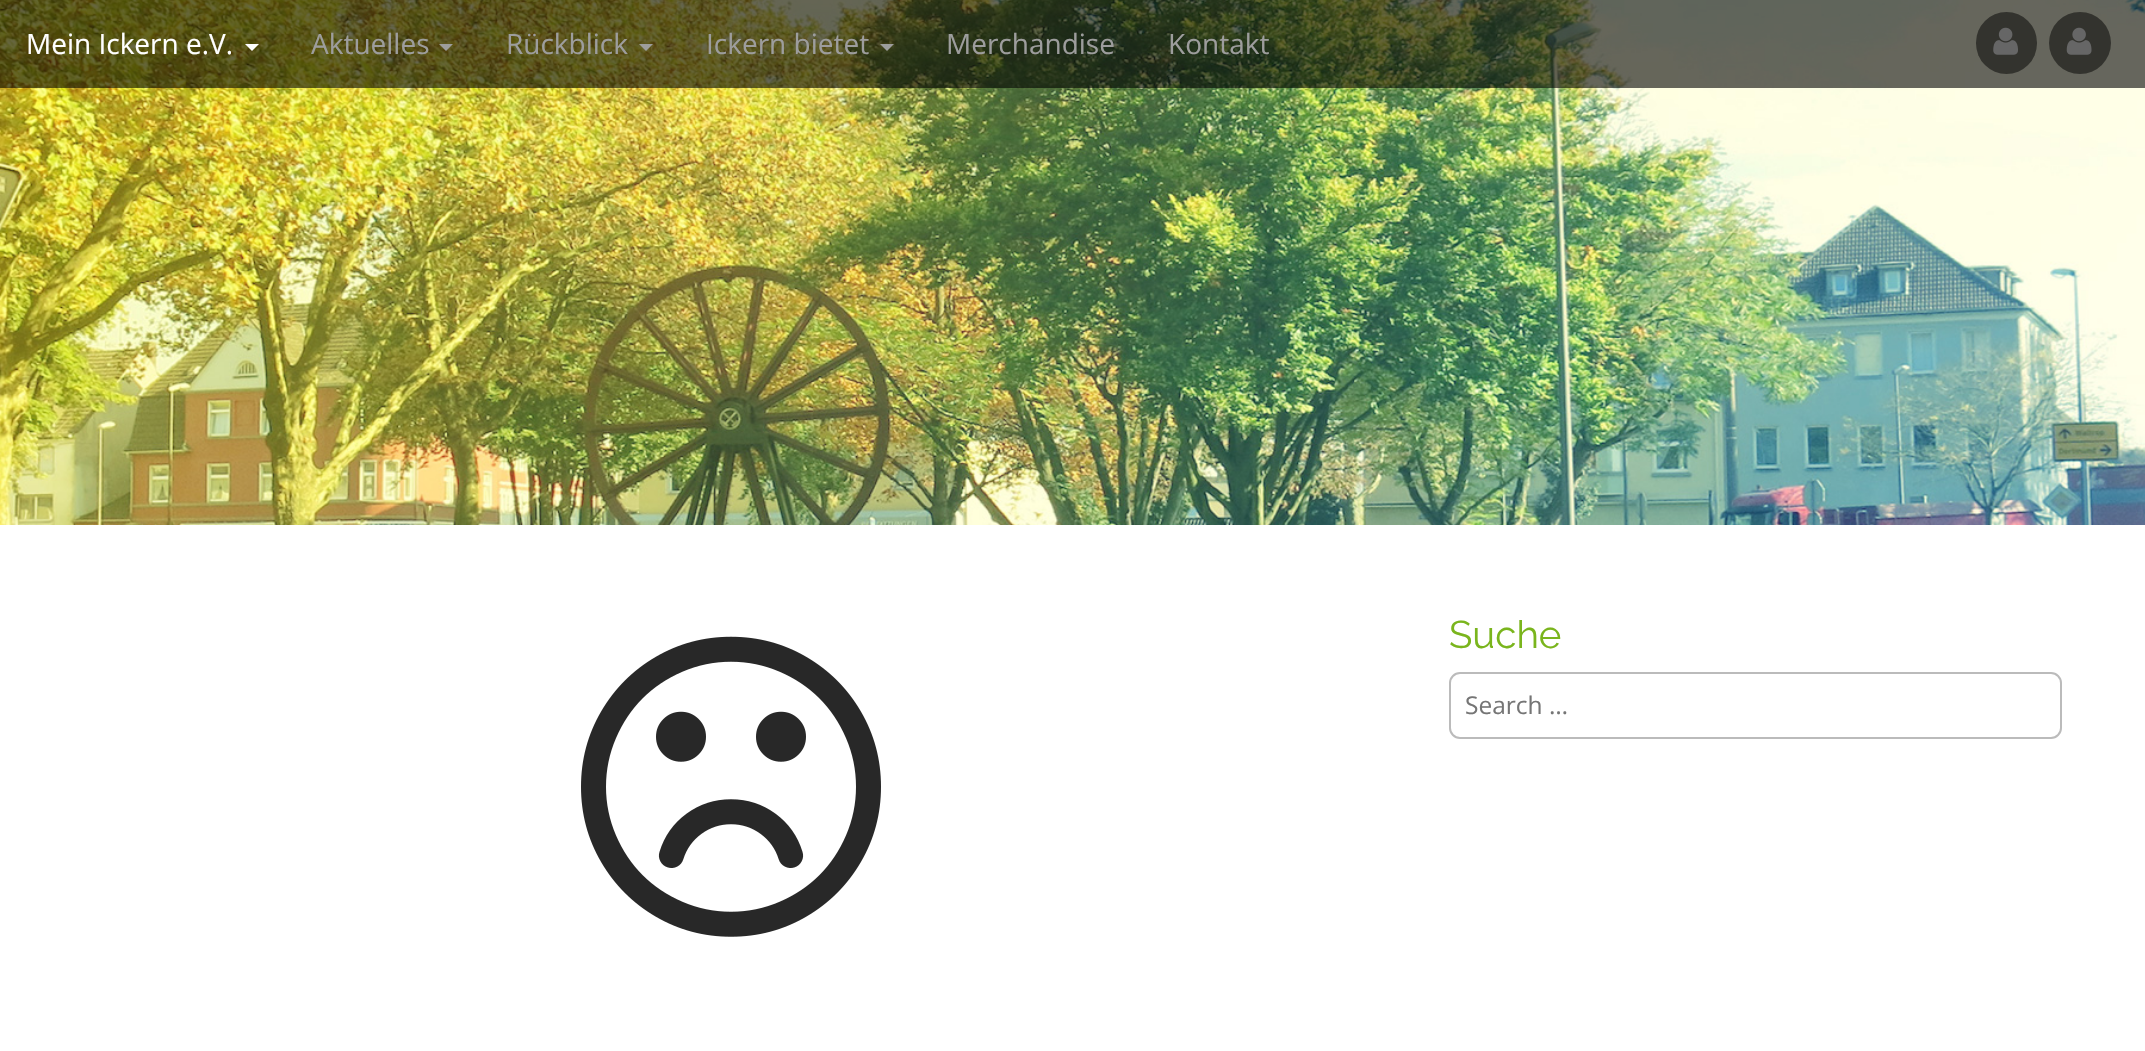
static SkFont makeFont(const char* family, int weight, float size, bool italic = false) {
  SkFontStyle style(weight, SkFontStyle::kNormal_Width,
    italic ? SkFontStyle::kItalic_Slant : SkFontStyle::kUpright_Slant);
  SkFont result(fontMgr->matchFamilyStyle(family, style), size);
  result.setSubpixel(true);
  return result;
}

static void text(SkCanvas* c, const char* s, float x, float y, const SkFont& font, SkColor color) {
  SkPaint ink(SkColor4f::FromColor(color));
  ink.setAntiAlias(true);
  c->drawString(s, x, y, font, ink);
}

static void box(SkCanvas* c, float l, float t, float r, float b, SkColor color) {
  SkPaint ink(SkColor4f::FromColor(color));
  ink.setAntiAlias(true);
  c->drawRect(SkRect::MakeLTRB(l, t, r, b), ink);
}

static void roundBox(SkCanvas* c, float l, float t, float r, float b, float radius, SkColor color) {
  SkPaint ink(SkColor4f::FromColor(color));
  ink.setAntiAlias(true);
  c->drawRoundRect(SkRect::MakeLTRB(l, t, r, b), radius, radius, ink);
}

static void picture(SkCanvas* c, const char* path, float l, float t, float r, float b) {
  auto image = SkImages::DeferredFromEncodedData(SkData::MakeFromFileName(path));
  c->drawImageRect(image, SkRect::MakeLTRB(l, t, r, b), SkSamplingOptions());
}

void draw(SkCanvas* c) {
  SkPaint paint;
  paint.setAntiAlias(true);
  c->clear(0xffffffff);
  picture(c, "img_01.png", 0, 0, 2145, 525);
  box(c, 0, 0, 2145, 88, 0x99000000);
  SkFont face1 = makeFont("Open Sans", 400, 28);
  text(c, "Mein Ickern e.V.", 26, 54, face1, 0xffffffff);
  paint.setColor(0xffffffff);
  c->drawPath(SkPathBuilder().moveTo(245, 44).lineTo(259, 44).lineTo(252, 51).close().detach(), paint);
  text(c, "Aktuelles", 311, 54, face1, 0xff9d9d9d);
  paint.setColor(0xff9d9d9d);
  c->drawPath(SkPathBuilder().moveTo(439, 44).lineTo(453, 44).lineTo(446, 51).close().detach(), paint);
  text(c, "Rückblick", 506, 54, face1, 0xff9d9d9d);
  c->drawPath(SkPathBuilder().moveTo(639, 44).lineTo(653, 44).lineTo(646, 51).close().detach(), paint);
  text(c, "Ickern bietet", 706, 54, face1, 0xff9d9d9d);
  c->drawPath(SkPathBuilder().moveTo(880, 44).lineTo(894, 44).lineTo(887, 51).close().detach(), paint);
  text(c, "Merchandise", 946, 54, face1, 0xff9d9d9d);
  text(c, "Kontakt", 1168, 54, face1, 0xff9d9d9d);
  roundBox(c, 1976, 12, 2037, 74, 30.5f, 0xff33332e);
  picture(c, "img_02.png", 1993, 27, 2018, 55);
  paint.setColor(0xff33332e);
  c->drawCircle(2080, 43, 31, paint);
  picture(c, "img_03.png", 2066, 27, 2092, 55);
  picture(c, "img_04.png", 581, 636, 881, 937);
  SkFont face2 = makeFont("Raleway", 100, 38.5f);
  text(c, "Suche", 1449, 648, face2, 0xff7ab51d);
  paint.setStyle(SkPaint::kStroke_Style);
  paint.setStrokeWidth(2);
  paint.setColor(0xffbbbbbb);
  c->drawRoundRect(SkRect::MakeLTRB(1450, 673, 2061, 738), 10, 10, paint);
  SkFont face3 = makeFont("Open Sans", 400, 24.5f);
  text(c, "Search …", 1465, 714, face3, 0xff757575);
}
